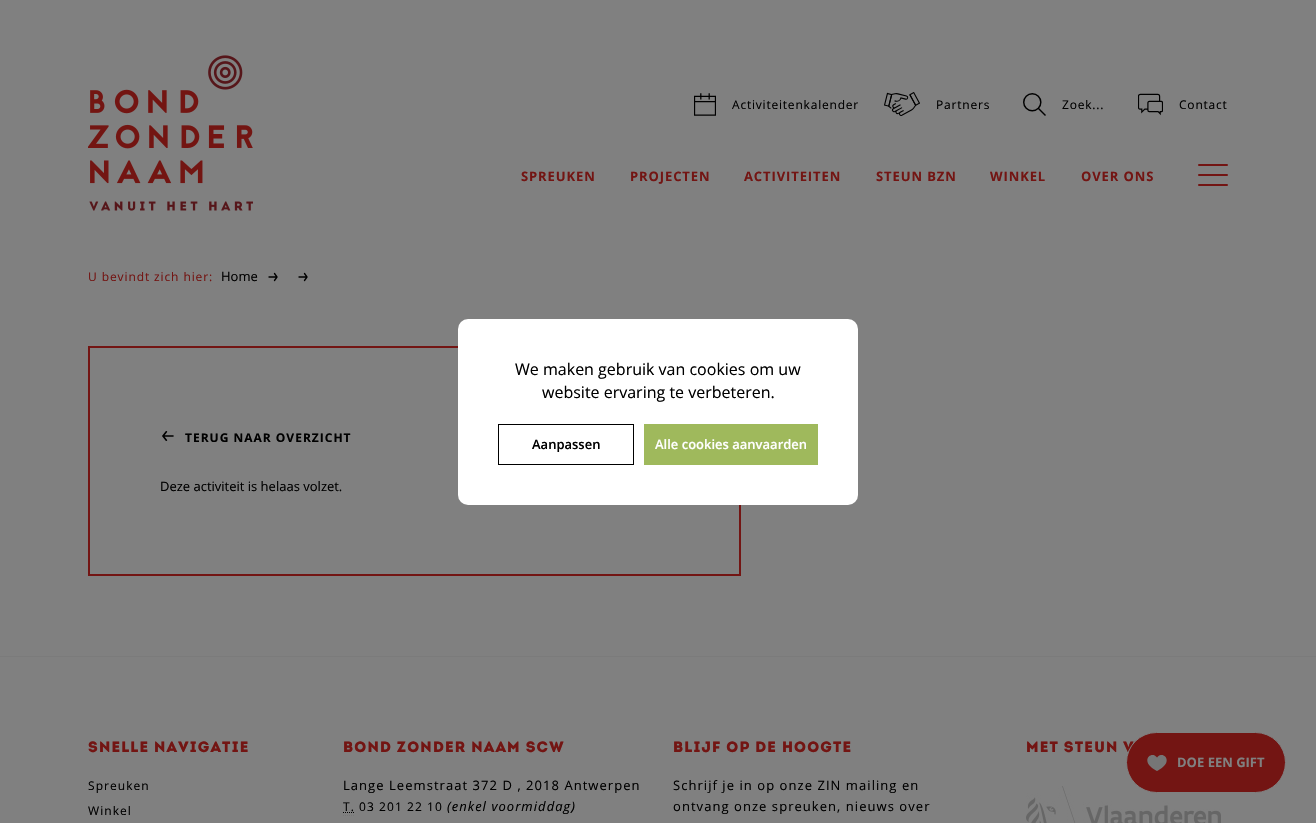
static SkFont makeFont(const char* family, int weight, float size, bool italic = false) {
  SkFontStyle style(weight, SkFontStyle::kNormal_Width,
    italic ? SkFontStyle::kItalic_Slant : SkFontStyle::kUpright_Slant);
  SkFont result(fontMgr->matchFamilyStyle(family, style), size);
  result.setSubpixel(true);
  return result;
}

static void text(SkCanvas* c, const char* s, float x, float y, const SkFont& font, SkColor color) {
  SkPaint ink(SkColor4f::FromColor(color));
  ink.setAntiAlias(true);
  c->drawString(s, x, y, font, ink);
}

static void spacedText(SkCanvas* c, const char* s, float x, float y, const SkFont& font, const SkPaint& ink, float letter, float word) {
  std::vector<SkGlyphID> glyphs(font.countText(s, strlen(s), SkTextEncoding::kUTF8));
  std::vector<float> xs(glyphs.size());
  font.textToGlyphs(s, strlen(s), SkTextEncoding::kUTF8, glyphs);
  font.getXPos(glyphs, xs, x);
  float extra = 0;
  for (size_t i = 0; i < glyphs.size(); i++) {
    xs[i] += extra;
    extra += letter + word * (glyphs[i] == font.unicharToGlyph(' '));
  }
  c->drawTextBlob(SkTextBlob::MakeFromPosHGlyphs(glyphs, xs, y, font), 0, 0, ink);
}

static void box(SkCanvas* c, float l, float t, float r, float b, SkColor color) {
  SkPaint ink(SkColor4f::FromColor(color));
  ink.setAntiAlias(true);
  c->drawRect(SkRect::MakeLTRB(l, t, r, b), ink);
}

static void roundBox(SkCanvas* c, float l, float t, float r, float b, float radius, SkColor color) {
  SkPaint ink(SkColor4f::FromColor(color));
  ink.setAntiAlias(true);
  c->drawRoundRect(SkRect::MakeLTRB(l, t, r, b), radius, radius, ink);
}

static void picture(SkCanvas* c, const char* path, float l, float t, float r, float b) {
  auto image = SkImages::DeferredFromEncodedData(SkData::MakeFromFileName(path));
  c->drawImageRect(image, SkRect::MakeLTRB(l, t, r, b), SkSamplingOptions());
}

void draw(SkCanvas* c) {
  SkPaint paint;
  paint.setAntiAlias(true);
  c->clear(0xff808080);
  picture(c, "img_01.png", 88, 55, 253, 211);
  picture(c, "img_02.png", 694, 93, 716, 116);
  SkFont face1 = makeFont("Open Sans", 400, 12);
  paint.setColor(0xff000000);
  spacedText(c, "Activiteitenkalender", 732, 109, face1, paint, 0.8f, 0);
  picture(c, "img_03.png", 884, 92, 920, 116);
  spacedText(c, "Partners", 936, 109, face1, paint, 0.8f, 0);
  picture(c, "img_04.png", 1023, 93, 1046, 116);
  spacedText(c, "Zoek...", 1062, 109, face1, paint, 0.8f, 0);
  picture(c, "img_05.png", 1138, 93, 1163, 116);
  spacedText(c, "Contact", 1179, 109, face1, paint, 0.8f, 0);
  SkFont face2 = makeFont("Open Sans", 700, 13);
  paint.setColor(0xff731513);
  spacedText(c, "SPREUKEN", 521, 181, face2, paint, 0.9f, 0);
  spacedText(c, "PROJECTEN", 630, 181, face2, paint, 0.9f, 0);
  spacedText(c, "ACTIVITEITEN", 744, 181, face2, paint, 0.9f, 0);
  spacedText(c, "STEUN BZN", 876, 181, face2, paint, 0.9f, 0);
  spacedText(c, "WINKEL", 990, 181, face2, paint, 0.9f, 0);
  spacedText(c, "OVER ONS", 1081, 181, face2, paint, 0.9f, 0);
  roundBox(c, 1198, 164, 1228, 166, 1, 0xff731513);
  roundBox(c, 1198, 174, 1228, 176, 1, 0xff731513);
  roundBox(c, 1198, 184, 1228, 186, 1, 0xff731513);
  spacedText(c, "U bevindt zich hier:", 88, 281, face1, paint, 0.9f, 0);
  SkFont face3 = makeFont("Open Sans", 400, 13);
  text(c, "Home", 221, 281, face3, 0xff000000);
  paint.setStyle(SkPaint::kStroke_Style);
  paint.setStrokeWidth(1.3f);
  paint.setStrokeCap(SkPaint::kRound_Cap);
  paint.setStrokeJoin(SkPaint::kRound_Join);
  paint.setColor(0xff000000);
  c->drawPath(SkPathBuilder().moveTo(269, 277).lineTo(277, 277).moveTo(274.5f, 273.5f).lineTo(277, 277).lineTo(274.5f, 280.5f).moveTo(299, 277).lineTo(307, 277).moveTo(304.5f, 273.5f).lineTo(307, 277).lineTo(304.5f, 280.5f).detach(), paint);
  paint.setStrokeWidth(2);
  paint.setStrokeCap(SkPaint::kButt_Cap);
  paint.setStrokeJoin(SkPaint::kMiter_Join);
  paint.setColor(0xff731513);
  c->drawRect(SkRect::MakeLTRB(89, 347, 740, 575), paint);
  picture(c, "img_06.png", 162, 431, 174, 441);
  SkFont face4 = makeFont("Open Sans", 700, 12);
  paint.setStyle(SkPaint::kFill_Style);
  paint.setColor(0xff000000);
  spacedText(c, "TERUG NAAR OVERZICHT", 185, 442, face4, paint, 1, 0);
  text(c, "Deze activiteit is helaas volzet.", 160, 491, face3, 0xff000000);
  roundBox(c, 458, 319, 858, 505, 10, 0xffffffff);
  SkFont face5 = makeFont("Open Sans", 400, 16);
  text(c, "We maken gebruik van cookies om uw", 515, 375, face5, 0xff000000);
  text(c, "website ervaring te verbeteren.", 542, 398, face5, 0xff000000);
  paint.setStyle(SkPaint::kStroke_Style);
  paint.setStrokeWidth(1);
  c->drawRect(SkRect::MakeLTRB(498.5f, 424.5f, 633.5f, 464.5f), paint);
  SkFont face6 = makeFont("Open Sans", 600, 13);
  text(c, "Aanpassen", 532, 449, face6, 0xff000000);
  box(c, 644, 424, 818, 465, 0xff9fb95c);
  text(c, "Alle cookies aanvaarden", 655, 449, face6, 0xffffffff);
  box(c, 0, 656, 1316, 657, 0xff7b7b7b);
  SkFont face7 = makeFont("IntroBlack", 400, 15);
  paint.setStyle(SkPaint::kFill_Style);
  paint.setColor(0xff731513);
  spacedText(c, "SNELLE NAVIGATIE", 88, 752, face7, paint, 1.2f, 0);
  paint.setColor(0xff000000);
  spacedText(c, "Spreuken", 88, 790, face1, paint, 1.05f, 0);
  spacedText(c, "Winkel", 88, 815, face1, paint, 1.05f, 0);
  paint.setColor(0xff731513);
  spacedText(c, "BOND ZONDER NAAM SCW", 343, 752, face7, paint, 1.2f, 0);
  paint.setColor(0xff000000);
  spacedText(c, "Lange Leemstraat 372 D , 2018 Antwerpen", 343, 790, face3, paint, 1.05f, 0);
  spacedText(c, "T. 03 201 22 10", 343, 811, face1, paint, 1.05f, 0);
  paint.setStyle(SkPaint::kStroke_Style);
  paint.setColor(0xff777777);
  paint.setPathEffect(SkDashPathEffect::Make({{1, 1}}, 0));
  c->drawPath(SkPathBuilder().moveTo(343, 815.5f).lineTo(355, 815.5f).detach(), paint);
  paint.setPathEffect(nullptr);
  paint.setColor(0xff000000);
  paint.setPathEffect(SkDashPathEffect::Make({{1, 1}}, 0));
  c->drawPath(SkPathBuilder().moveTo(343, 812.5f).lineTo(355, 812.5f).detach(), paint);
  paint.setPathEffect(nullptr);
  SkFont face8 = makeFont("Open Sans", 400, 13, true);
  paint.setStyle(SkPaint::kFill_Style);
  spacedText(c, "(enkel voormiddag)", 447, 811, face8, paint, 1.05f, 0);
  paint.setColor(0xff731513);
  spacedText(c, "BLIJF OP DE HOOGTE", 673, 752, face7, paint, 1.2f, 0);
  paint.setColor(0xff000000);
  spacedText(c, "Schrijf je in op onze ZIN mailing en", 673, 790, face3, paint, 1.05f, 0);
  spacedText(c, "ontvang onze spreuken, nieuws over", 673, 811, face3, paint, 1.05f, 0);
  paint.setColor(0xff731513);
  spacedText(c, "MET STEUN V", 1026, 752, face7, paint, 1.2f, 0);
  picture(c, "img_07.png", 1026, 786, 1221, 823);
  c->drawRoundRect(SkRect::MakeLTRB(1126.5f, 732.5f, 1285.5f, 792.5f), 30, 30, paint);
  paint.setStyle(SkPaint::kStroke_Style);
  paint.setColor(0xff808080);
  c->drawRoundRect(SkRect::MakeLTRB(1126.5f, 732.5f, 1285.5f, 792.5f), 30, 30, paint);
  picture(c, "img_08.png", 1147, 755, 1167, 771);
  text(c, "DOE EEN GIFT", 1177, 767, face2, 0xff808080);
}
